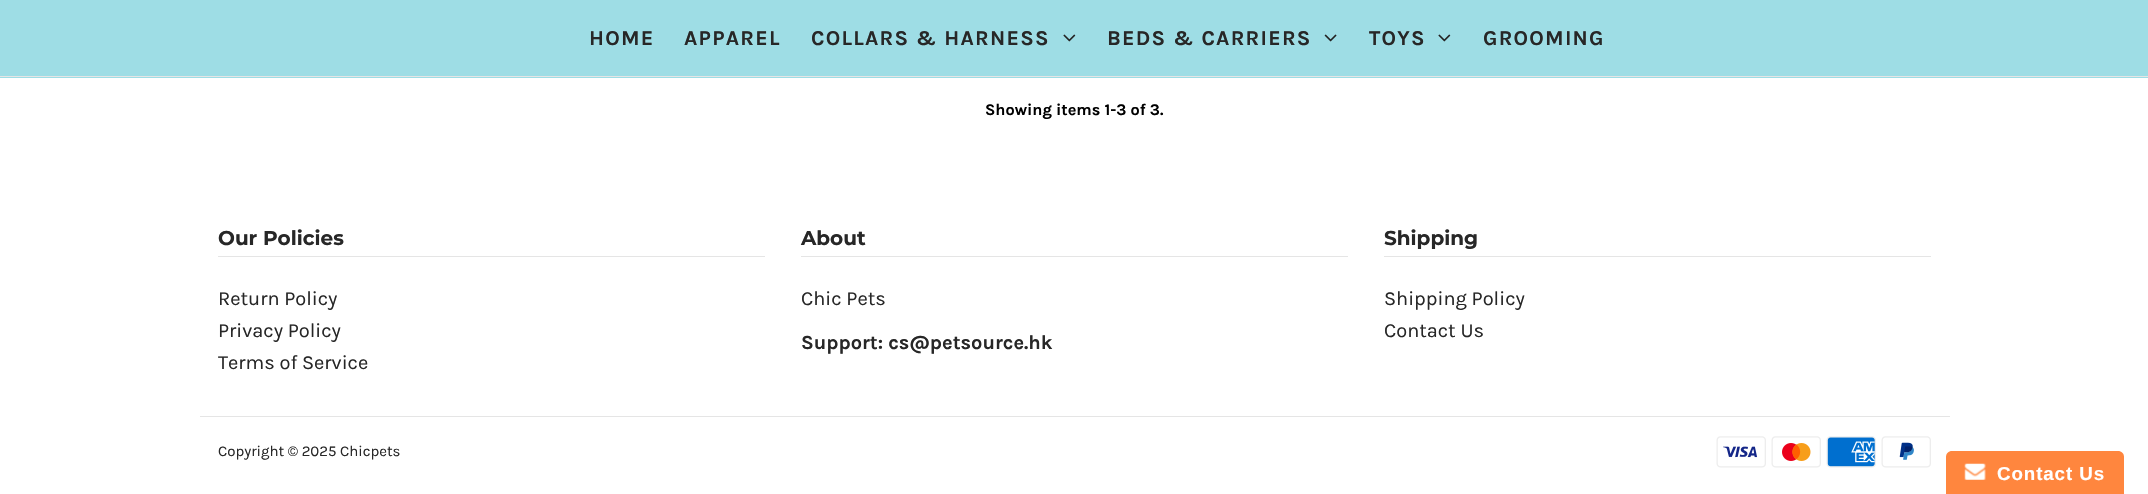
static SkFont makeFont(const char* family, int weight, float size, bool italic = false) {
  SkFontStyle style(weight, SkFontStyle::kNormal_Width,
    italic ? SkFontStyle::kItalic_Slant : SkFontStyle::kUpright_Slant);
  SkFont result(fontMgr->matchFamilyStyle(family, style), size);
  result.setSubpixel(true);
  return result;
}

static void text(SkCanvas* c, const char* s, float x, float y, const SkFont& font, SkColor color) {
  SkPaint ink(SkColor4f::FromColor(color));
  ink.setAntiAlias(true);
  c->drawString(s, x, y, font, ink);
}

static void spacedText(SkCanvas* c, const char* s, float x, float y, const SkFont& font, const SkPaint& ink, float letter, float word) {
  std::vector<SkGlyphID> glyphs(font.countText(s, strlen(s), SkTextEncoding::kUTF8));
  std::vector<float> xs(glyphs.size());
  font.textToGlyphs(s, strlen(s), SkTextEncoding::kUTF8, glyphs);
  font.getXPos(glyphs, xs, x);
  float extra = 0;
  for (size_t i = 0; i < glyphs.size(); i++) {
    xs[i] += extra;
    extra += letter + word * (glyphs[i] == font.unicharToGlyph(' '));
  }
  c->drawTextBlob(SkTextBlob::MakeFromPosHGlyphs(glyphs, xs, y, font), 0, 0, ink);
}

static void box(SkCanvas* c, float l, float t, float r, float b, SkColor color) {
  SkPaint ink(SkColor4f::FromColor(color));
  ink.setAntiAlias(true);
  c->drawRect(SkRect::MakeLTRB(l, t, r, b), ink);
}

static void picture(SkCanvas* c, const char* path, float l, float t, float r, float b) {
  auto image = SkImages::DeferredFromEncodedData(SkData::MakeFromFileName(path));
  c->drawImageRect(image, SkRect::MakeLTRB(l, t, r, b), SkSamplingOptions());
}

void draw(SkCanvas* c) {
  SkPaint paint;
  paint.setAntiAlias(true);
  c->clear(0xffffffff);
  box(c, 0, 0, 2148, 78, 0xff9edde5);
  box(c, 0, 76, 2148, 77, 0xffe5e5e5);
  SkFont face1 = makeFont("Karla", 700, 21.25f);
  paint.setColor(0xff272727);
  spacedText(c, "HOME", 589, 45, face1, paint, 1.25f, 0);
  spacedText(c, "APPAREL", 684, 45, face1, paint, 1.25f, 0);
  spacedText(c, "COLLARS & HARNESS", 811, 45, face1, paint, 1.25f, 0);
  picture(c, "img_01.png", 1063, 34, 1076, 42);
  spacedText(c, "BEDS & CARRIERS", 1107, 45, face1, paint, 1.25f, 0);
  picture(c, "img_02.png", 1324, 34, 1337, 42);
  spacedText(c, "TOYS", 1369, 45, face1, paint, 1.25f, 0);
  picture(c, "img_01.png", 1438, 34, 1451, 42);
  spacedText(c, "GROOMING", 1483, 45, face1, paint, 1.25f, 0);
  SkFont face2 = makeFont("Karla", 700, 16.25f);
  text(c, "Showing items 1-3 of 3.", 985, 115, face2, 0xff000000);
  box(c, 218, 256, 765, 257, 0xffe5e5e5);
  SkFont face3 = makeFont("Montserrat", 700, 20);
  text(c, "Our Policies", 218, 245, face3, 0xff272727);
  SkFont face4 = makeFont("Karla", 400, 20);
  text(c, "Return Policy", 218, 305, face4, 0xff272727);
  text(c, "Privacy Policy", 218, 337, face4, 0xff272727);
  text(c, "Terms of Service", 218, 369, face4, 0xff272727);
  box(c, 801, 256, 1348, 257, 0xffe5e5e5);
  text(c, "About", 801, 245, face3, 0xff272727);
  text(c, "Chic Pets", 801, 305, face4, 0xff272727);
  SkFont face5 = makeFont("Karla", 700, 20);
  text(c, "Support: cs@petsource.hk", 801, 349, face5, 0xff272727);
  box(c, 1384, 256, 1931, 257, 0xffe5e5e5);
  text(c, "Shipping", 1384, 245, face3, 0xff272727);
  text(c, "Shipping Policy", 1384, 305, face4, 0xff272727);
  text(c, "Contact Us", 1384, 337, face4, 0xff272727);
  box(c, 200, 416, 1950, 417, 0xffe5e5e5);
  SkFont face6 = makeFont("Karla", 400, 15);
  text(c, "Copyright © 2025 Chicpets", 218, 456, face6, 0xff272727);
  picture(c, "img_03.png", 1716, 436, 1766, 468);
  picture(c, "img_04.png", 1771, 436, 1821, 468);
  picture(c, "img_05.png", 1826, 436, 1876, 468);
  picture(c, "img_06.png", 1881, 436, 1931, 468);
  paint.setColor(0xffff863e);
  c->drawPath(SkPathBuilder().moveTo(1952, 451).lineTo(2118, 451).cubicTo(2121.5f, 451, 2124, 453.5f, 2124, 457).lineTo(2124, 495).lineTo(1946, 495).lineTo(1946, 457).cubicTo(1946, 453.5f, 1948.5f, 451, 1952, 451).close().detach(), paint);
  picture(c, "img_07.png", 1964, 463, 1986, 480);
  SkFont face7 = makeFont("Liberation Sans", 700, 18.75f);
  paint.setColor(0xffffffff);
  spacedText(c, "Contact Us", 1997, 480, face7, paint, 0.9f, 0);
}
